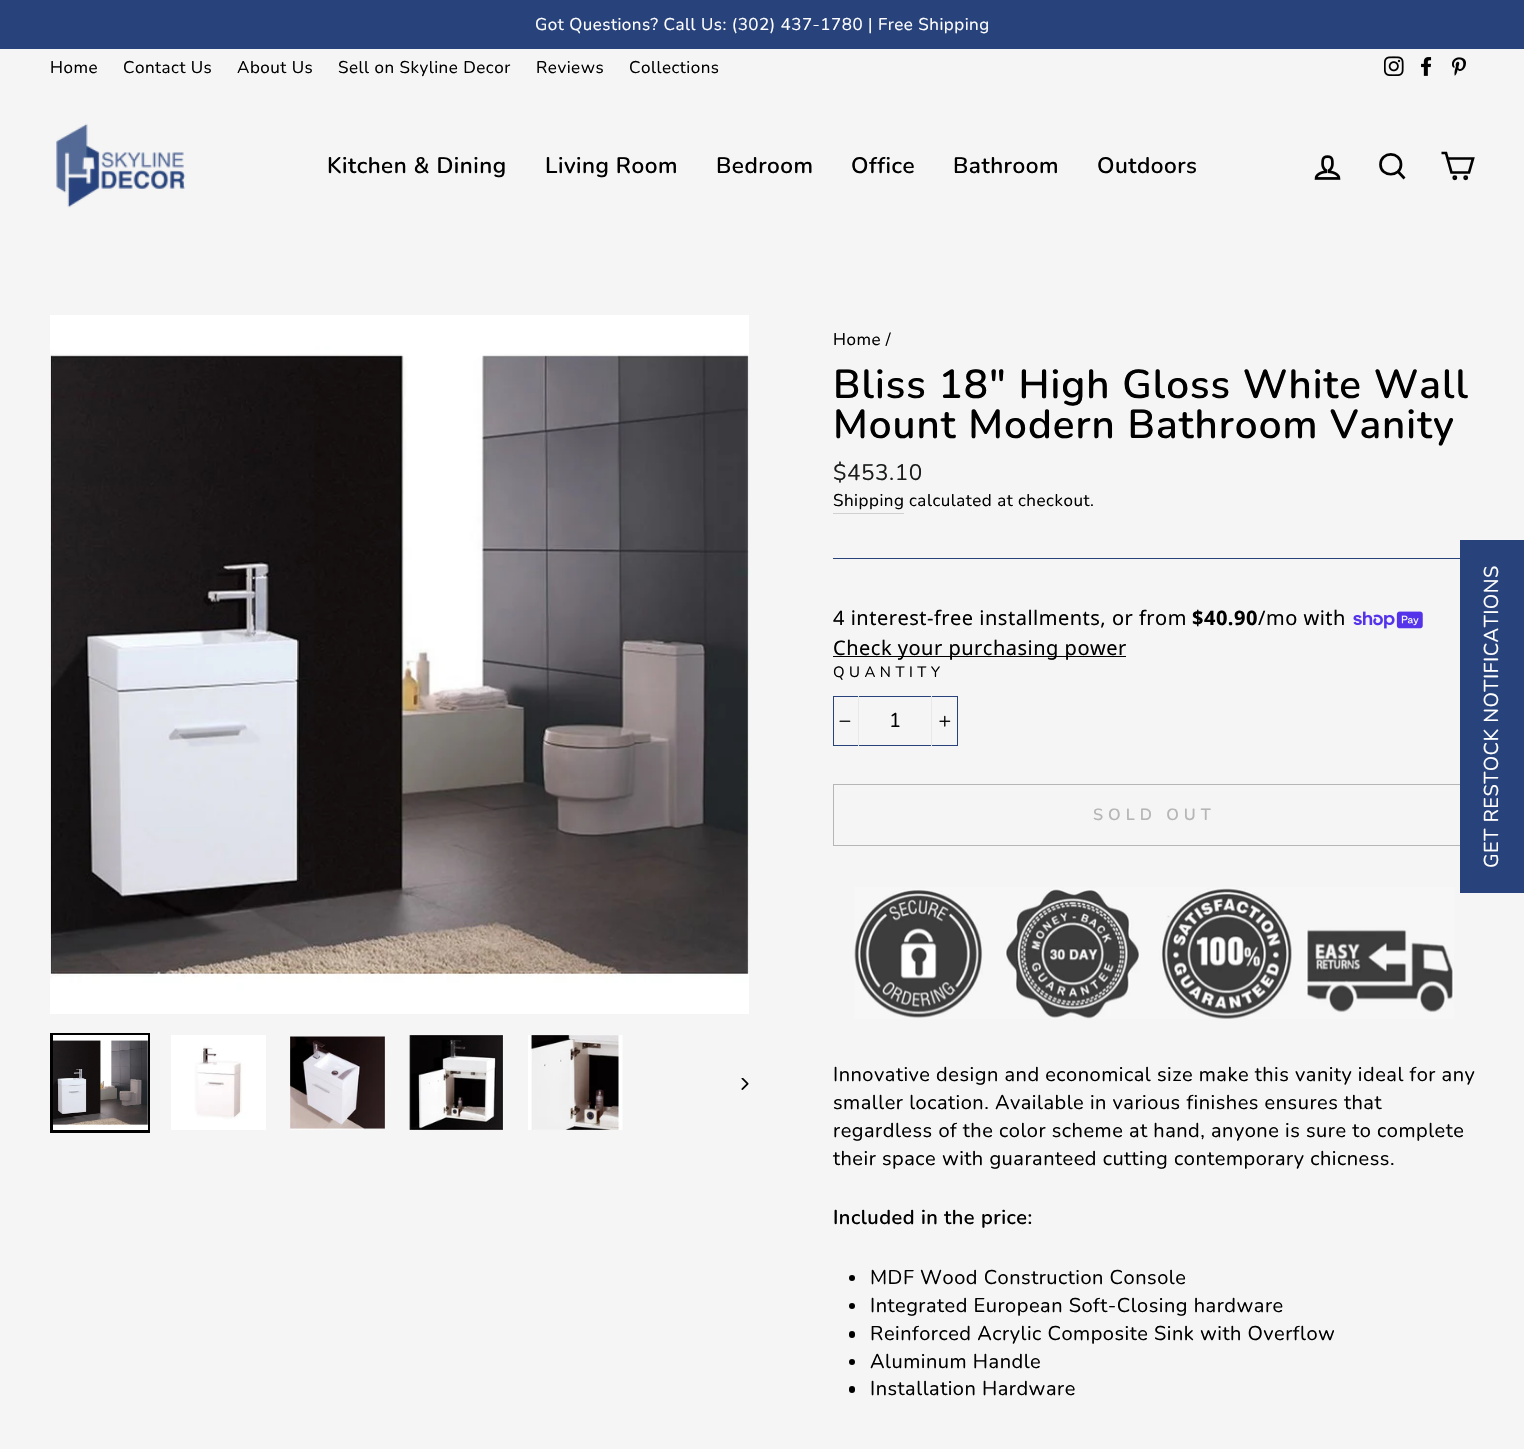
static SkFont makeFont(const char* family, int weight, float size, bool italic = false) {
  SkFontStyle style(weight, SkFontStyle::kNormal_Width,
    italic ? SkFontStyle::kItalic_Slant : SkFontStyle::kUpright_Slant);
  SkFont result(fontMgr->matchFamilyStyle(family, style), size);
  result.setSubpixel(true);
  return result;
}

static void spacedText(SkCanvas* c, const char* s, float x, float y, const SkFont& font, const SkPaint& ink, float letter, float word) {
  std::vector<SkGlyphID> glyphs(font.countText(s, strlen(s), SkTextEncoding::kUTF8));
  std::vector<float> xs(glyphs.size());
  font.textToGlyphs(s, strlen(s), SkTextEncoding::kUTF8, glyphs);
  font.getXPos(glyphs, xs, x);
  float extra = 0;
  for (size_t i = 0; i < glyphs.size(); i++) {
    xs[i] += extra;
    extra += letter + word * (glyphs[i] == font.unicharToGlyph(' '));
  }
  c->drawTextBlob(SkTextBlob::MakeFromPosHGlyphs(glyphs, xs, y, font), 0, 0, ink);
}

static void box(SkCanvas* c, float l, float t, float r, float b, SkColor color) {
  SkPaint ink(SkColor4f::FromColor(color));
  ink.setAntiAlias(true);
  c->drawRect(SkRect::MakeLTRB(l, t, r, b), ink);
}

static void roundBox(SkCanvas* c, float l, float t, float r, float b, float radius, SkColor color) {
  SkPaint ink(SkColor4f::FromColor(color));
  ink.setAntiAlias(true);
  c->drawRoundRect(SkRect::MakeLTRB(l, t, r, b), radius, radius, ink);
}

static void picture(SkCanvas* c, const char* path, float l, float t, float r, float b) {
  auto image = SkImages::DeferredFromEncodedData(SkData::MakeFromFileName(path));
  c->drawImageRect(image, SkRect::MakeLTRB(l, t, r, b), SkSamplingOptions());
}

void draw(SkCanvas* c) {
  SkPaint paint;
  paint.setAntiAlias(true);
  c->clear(0xfff5f5f5);
  box(c, 0, 0, 1524, 49, 0xff28437c);
  SkFont face1 = makeFont("Nunito", 400, 17);
  paint.setColor(0xffffffff);
  spacedText(c, "Got Questions? Call Us: (302) 437-1780 | Free Shipping", 535, 30, face1, paint, 0.5f, 0);
  paint.setColor(0xff000000);
  spacedText(c, "Home", 50, 73, face1, paint, 0.5f, 0);
  spacedText(c, "Contact Us", 123, 73, face1, paint, 0.5f, 0);
  spacedText(c, "About Us", 237, 73, face1, paint, 0.5f, 0);
  spacedText(c, "Sell on Skyline Decor", 338, 73, face1, paint, 0.5f, 0);
  spacedText(c, "Reviews", 536, 73, face1, paint, 0.5f, 0);
  spacedText(c, "Collections", 629, 73, face1, paint, 0.5f, 0);
  picture(c, "img_01.png", 1384, 56, 1404, 76);
  picture(c, "img_02.png", 1421, 57, 1432, 76);
  picture(c, "img_03.png", 1452, 57, 1466, 76);
  picture(c, "img_04.png", 56, 123, 186, 208);
  SkFont face2 = makeFont("Nunito", 600, 22.5f);
  spacedText(c, "Kitchen & Dining", 327, 173, face2, paint, 0.5f, 0);
  spacedText(c, "Living Room", 545, 173, face2, paint, 0.5f, 0);
  spacedText(c, "Bedroom", 716, 173, face2, paint, 0.5f, 0);
  spacedText(c, "Office", 851, 173, face2, paint, 0.5f, 0);
  spacedText(c, "Bathroom", 953, 173, face2, paint, 0.5f, 0);
  spacedText(c, "Outdoors", 1097, 173, face2, paint, 0.5f, 0);
  picture(c, "img_05.png", 1314, 155, 1341, 180);
  paint.setStyle(SkPaint::kStroke_Style);
  paint.setStrokeWidth(2.7f);
  c->drawPath(SkPathBuilder().moveTo(1401, 164.5f).cubicTo(1401, 177.5f, 1380.5f, 177.5f, 1380.5f, 164.5f).cubicTo(1380.5f, 151, 1401, 151, 1401, 164.5f).close().moveTo(1404.5f, 178.5f).lineTo(1398, 171.5f).detach(), paint);
  c->drawPath(SkPathBuilder().moveTo(1447.5f, 158.5f).lineTo(1473, 158.5f).lineTo(1469, 172.5f).lineTo(1451.5f, 172.5f).lineTo(1446, 153).lineTo(1441.5f, 153).detach(), paint);
  c->drawCircle(1454.8f, 177.7f, 1.1f, paint);
  c->drawCircle(1465.7f, 177.7f, 1.1f, paint);
  picture(c, "img_06.png", 50, 315, 749, 1014);
  paint.setStrokeWidth(3);
  c->drawRect(SkRect::MakeLTRB(51.5f, 1034.5f, 148.5f, 1131.5f), paint);
  picture(c, "img_07.png", 53, 1035, 148, 1130);
  picture(c, "img_08.png", 171, 1035, 266, 1130);
  picture(c, "img_09.png", 290, 1036, 385, 1130);
  picture(c, "img_10.png", 409, 1035, 504, 1130);
  picture(c, "img_11.png", 528, 1035, 623, 1130);
  picture(c, "img_12.png", 741, 1078, 749, 1090);
  paint.setStyle(SkPaint::kFill_Style);
  spacedText(c, "Home /", 833, 345, face1, paint, 0.5f, 0);
  SkFont face3 = makeFont("Nunito", 600, 40.4f);
  spacedText(c, "Bliss 18″ High Gloss White Wall", 833, 398, face3, paint, 1, 0);
  spacedText(c, "Mount Modern Bathroom Vanity", 833, 438, face3, paint, 1, 0);
  SkFont face4 = makeFont("Nunito", 400, 22.5f);
  paint.setColor(0xff1c1d1d);
  spacedText(c, "$453.10", 833, 480, face4, paint, 0.5f, 0);
  box(c, 833, 513, 904, 514, 0xffd0d0d0);
  paint.setColor(0xff000000);
  spacedText(c, "Shipping", 833, 506, face1, paint, 0.5f, 0);
  spacedText(c, "calculated at checkout.", 909, 506, face1, paint, 0.5f, 0);
  box(c, 833, 558, 1460, 559, 0xff28437c);
  SkFont face5 = makeFont("Noto Sans", 400, 20);
  spacedText(c, "4 interest-free installments, or from", 833, 625, face5, paint, 0.5f, 0);
  SkFont face6 = makeFont("Noto Sans", 700, 20);
  spacedText(c, "$40.90", 1192, 625, face6, paint, 0.5f, 0);
  spacedText(c, "/mo with", 1258, 625, face5, paint, 0.5f, 0);
  picture(c, "img_13.png", 1353, 611, 1423, 629);
  box(c, 833, 656, 1126, 657, 0xff000000);
  spacedText(c, "Check your purchasing power", 833, 655, face5, paint, 0.5f, 0);
  SkFont face7 = makeFont("Nunito", 400, 15);
  spacedText(c, "QUANTITY", 833, 677, face7, paint, 4.5f, 0);
  paint.setStyle(SkPaint::kStroke_Style);
  paint.setStrokeWidth(1);
  paint.setColor(0xff28437c);
  c->drawRect(SkRect::MakeLTRB(833.5f, 696.5f, 957.5f, 745.5f), paint);
  box(c, 858, 696, 859, 746, 0xffe8e8e8);
  picture(c, "img_14.png", 839, 720, 851, 722);
  SkFont face8 = makeFont("Nunito", 400, 20);
  paint.setStyle(SkPaint::kFill_Style);
  paint.setColor(0xff000000);
  spacedText(c, "1", 889, 727, face8, paint, 0.5f, 0);
  box(c, 931, 696, 932, 746, 0xffe8e8e8);
  picture(c, "img_15.png", 939, 715, 951, 727);
  paint.setStyle(SkPaint::kStroke_Style);
  paint.setColor(0xffb6b6b6);
  c->drawRect(SkRect::MakeLTRB(833.5f, 784.5f, 1474.5f, 845.5f), paint);
  SkFont face9 = makeFont("Nunito", 600, 16.25f);
  paint.setStyle(SkPaint::kFill_Style);
  spacedText(c, "SOLD OUT", 1093, 820, face9, paint, 5, 0);
  picture(c, "img_16.png", 854, 887, 1454, 1019);
  paint.setColor(0xff000000);
  spacedText(c, "Innovative design and economical size make this vanity ideal for any", 833, 1081, face8, paint, 0.5f, 0);
  spacedText(c, "smaller location. Available in various finishes ensures that", 833, 1109, face8, paint, 0.5f, 0);
  spacedText(c, "regardless of the color scheme at hand, anyone is sure to complete", 833, 1137, face8, paint, 0.5f, 0);
  spacedText(c, "their space with guaranteed cutting contemporary chicness.", 833, 1165, face8, paint, 0.5f, 0);
  SkFont face10 = makeFont("Nunito", 600, 20);
  spacedText(c, "Included in the price:", 833, 1224, face10, paint, 0.5f, 0);
  c->drawCircle(852, 1278, 3, paint);
  spacedText(c, "MDF Wood Construction Console", 870, 1284, face8, paint, 0.5f, 0);
  c->drawCircle(852, 1306, 3, paint);
  spacedText(c, "Integrated European Soft-Closing hardware", 870, 1312, face8, paint, 0.5f, 0);
  roundBox(c, 849, 1331, 855, 1338, 3, 0xff000000);
  spacedText(c, "Reinforced Acrylic Composite Sink with Overflow", 870, 1340, face8, paint, 0.5f, 0);
  c->drawCircle(852, 1362, 3, paint);
  spacedText(c, "Aluminum Handle", 870, 1368, face8, paint, 0.5f, 0);
  roundBox(c, 849, 1386, 855, 1393, 3, 0xff000000);
  spacedText(c, "Installation Hardware", 870, 1395, face8, paint, 0.5f, 0);
  box(c, 1460, 540, 1524, 893, 0xff28437c);
  paint.setColor(0xffffffff);
  c->save();
  c->rotate(-90, 1498, 868);
  spacedText(c, "GET RESTOCK NOTIFICATIONS", 1498, 868, face8, paint, 0.5f, 0);
  c->restore();
}
